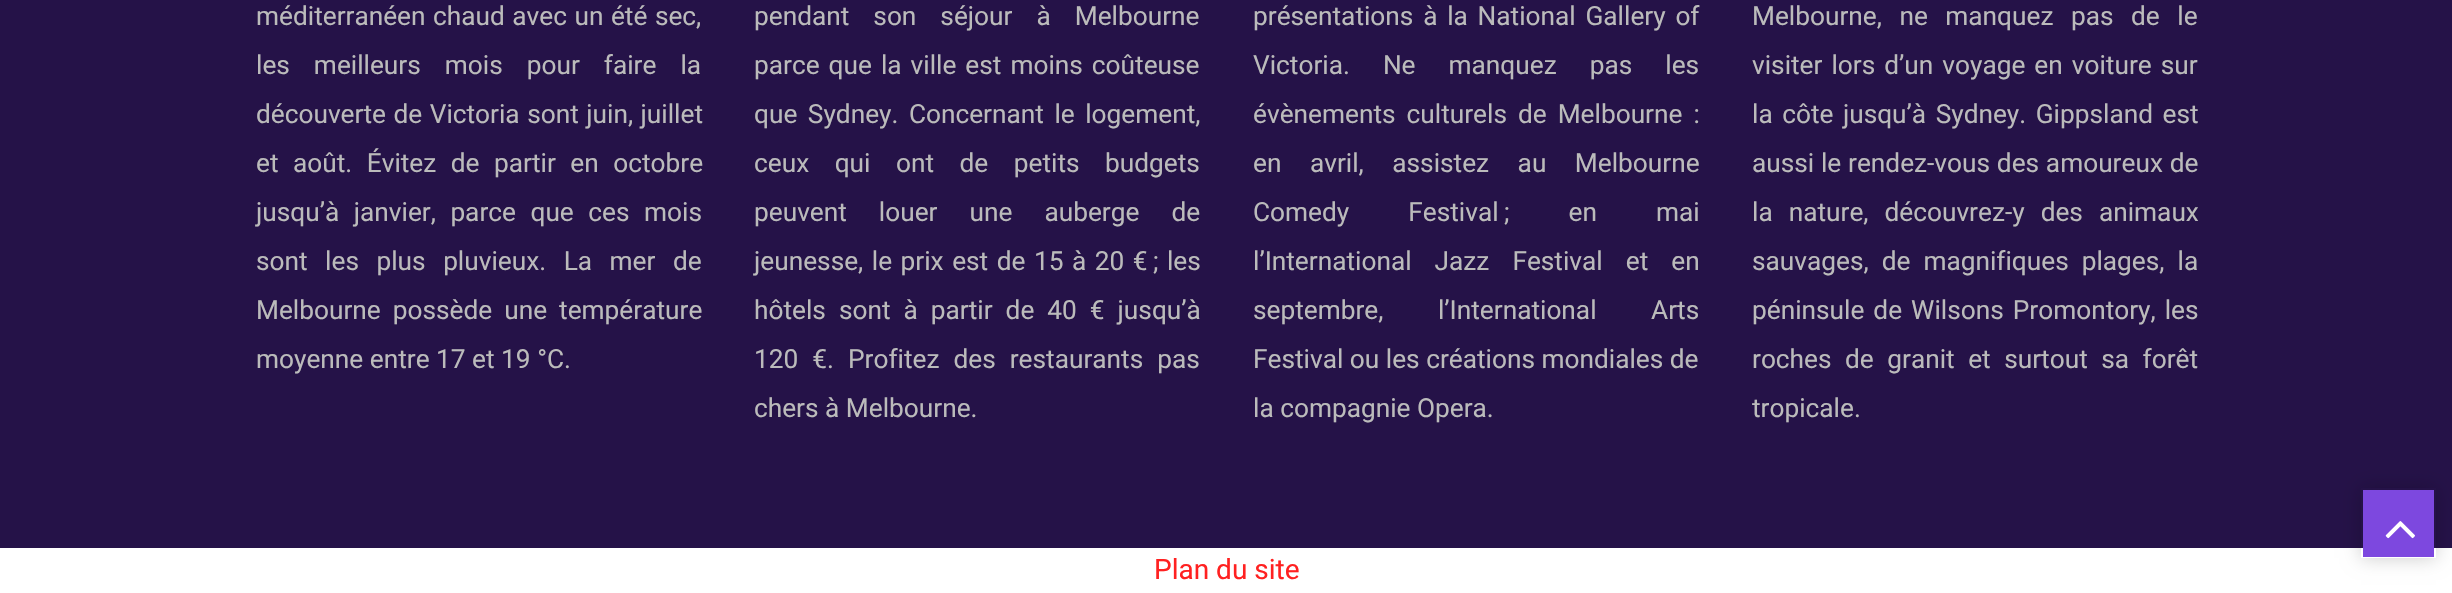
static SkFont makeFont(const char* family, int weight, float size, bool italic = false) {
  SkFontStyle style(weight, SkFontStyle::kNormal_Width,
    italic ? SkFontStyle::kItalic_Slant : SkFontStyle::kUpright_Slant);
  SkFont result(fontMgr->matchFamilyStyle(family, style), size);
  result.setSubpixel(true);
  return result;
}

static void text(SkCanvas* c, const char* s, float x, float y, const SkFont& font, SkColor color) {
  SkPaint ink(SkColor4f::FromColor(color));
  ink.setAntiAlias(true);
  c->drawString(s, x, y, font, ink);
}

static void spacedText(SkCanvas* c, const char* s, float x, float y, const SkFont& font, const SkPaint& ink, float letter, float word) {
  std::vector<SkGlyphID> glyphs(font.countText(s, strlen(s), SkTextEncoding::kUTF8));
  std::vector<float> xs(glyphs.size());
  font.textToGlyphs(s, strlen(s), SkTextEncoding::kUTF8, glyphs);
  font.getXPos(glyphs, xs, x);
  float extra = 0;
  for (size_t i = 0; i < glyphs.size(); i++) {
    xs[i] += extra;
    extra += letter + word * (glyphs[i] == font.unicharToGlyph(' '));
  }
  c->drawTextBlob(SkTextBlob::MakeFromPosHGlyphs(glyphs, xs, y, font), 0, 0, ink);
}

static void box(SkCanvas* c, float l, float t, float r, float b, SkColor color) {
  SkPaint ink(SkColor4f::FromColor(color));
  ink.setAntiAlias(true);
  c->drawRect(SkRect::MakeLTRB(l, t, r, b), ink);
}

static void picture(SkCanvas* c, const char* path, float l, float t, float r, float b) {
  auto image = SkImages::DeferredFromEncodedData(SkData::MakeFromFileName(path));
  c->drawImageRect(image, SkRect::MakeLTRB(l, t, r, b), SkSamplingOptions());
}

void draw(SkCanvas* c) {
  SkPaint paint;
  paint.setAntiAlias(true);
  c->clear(0xffffffff);
  box(c, 0, 0, 2452, 548, 0xff251248);
  SkFont face1 = makeFont("Roboto", 400, 26.25f);
  paint.setColor(0xffbbbbbb);
  spacedText(c, "méditerranéen chaud avec un été sec,", 256, 25, face1, paint, 0, 1);
  spacedText(c, "les meilleurs mois pour faire la", 256, 74, face1, paint, 0, 17.5f);
  spacedText(c, "découverte de Victoria sont juin, juillet", 256, 123, face1, paint, 0, 1);
  spacedText(c, "et août. Évitez de partir en octobre", 256, 172, face1, paint, 0, 8);
  spacedText(c, "jusqu’à janvier, parce que ces mois", 256, 221, face1, paint, 0, 8);
  spacedText(c, "sont les plus pluvieux. La mer de", 256, 270, face1, paint, 0, 11);
  spacedText(c, "Melbourne possède une température", 256, 319, face1, paint, 0, 5.5f);
  text(c, "moyenne entre 17 et 19 °C.", 256, 368, face1, 0xffbbbbbb);
  spacedText(c, "pendant son séjour à Melbourne", 754, 25, face1, paint, 0, 17.5f);
  spacedText(c, "parce que la ville est moins coûteuse", 754, 74, face1, paint, 0, 2.5f);
  spacedText(c, "que Sydney. Concernant le logement,", 754, 123, face1, paint, 0, 4);
  spacedText(c, "ceux qui ont de petits budgets", 754, 172, face1, paint, 0, 19);
  spacedText(c, "peuvent louer une auberge de", 754, 221, face1, paint, 0, 25.5f);
  spacedText(c, "jeunesse, le prix est de 15 à 20 € ; les", 754, 270, face1, paint, 0, 2);
  spacedText(c, "hôtels sont à partir de 40 € jusqu’à", 754, 319, face1, paint, 0, 6.5f);
  spacedText(c, "120 €. Profitez des restaurants pas", 754, 368, face1, paint, 0, 7.5f);
  text(c, "chers à Melbourne.", 754, 417, face1, 0xffbbbbbb);
  spacedText(c, "présentations à la National Gallery of", 1253, 25, face1, paint, 0, 3.25f);
  spacedText(c, "Victoria. Ne manquez pas les", 1253, 74, face1, paint, 0, 26.5f);
  spacedText(c, "évènements culturels de Melbourne :", 1253, 123, face1, paint, 0, 4.5f);
  spacedText(c, "en avril, assistez au Melbourne", 1253, 172, face1, paint, 0, 22);
  spacedText(c, "Comedy Festival ; en mai", 1253, 221, face1, paint, 0, 52.5f);
  spacedText(c, "l’International Jazz Festival et en", 1253, 270, face1, paint, 0, 16.5f);
  spacedText(c, "septembre, l’International Arts", 1253, 319, face1, paint, 0, 48);
  text(c, "Festival ou les créations mondiales de", 1253, 368, face1, 0xffbbbbbb);
  text(c, "la compagnie Opera.", 1253, 417, face1, 0xffbbbbbb);
  spacedText(c, "Melbourne, ne manquez pas de le", 1752, 25, face1, paint, 0, 11);
  spacedText(c, "visiter lors d’un voyage en voiture sur", 1752, 74, face1, paint, 0, 2.5f);
  spacedText(c, "la côte jusqu’à Sydney. Gippsland est", 1752, 123, face1, paint, 0, 3);
  spacedText(c, "aussi le rendez-vous des amoureux de", 1752, 172, face1, paint, 0, 0.25f);
  spacedText(c, "la nature, découvrez-y des animaux", 1752, 221, face1, paint, 0, 9.5f);
  spacedText(c, "sauvages, de magnifiques plages, la", 1752, 270, face1, paint, 0, 6.5f);
  spacedText(c, "péninsule de Wilsons Promontory, les", 1752, 319, face1, paint, 0, 2.5f);
  spacedText(c, "roches de granit et surtout sa forêt", 1752, 368, face1, paint, 0, 7);
  text(c, "tropicale.", 1752, 417, face1, 0xffbbbbbb);
  c->save();
  c->clipPath(SkPathBuilder(SkPathFillType::kEvenOdd).moveTo(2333, 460).lineTo(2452, 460).lineTo(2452, 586).lineTo(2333, 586).close().moveTo(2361, 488).lineTo(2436, 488).lineTo(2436, 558).lineTo(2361, 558).close().detach(), true);
  paint.setColor(0x33000000);
  paint.setMaskFilter(SkMaskFilter::MakeBlur(kNormal_SkBlurStyle, 9));
  c->drawRect(SkRect::MakeLTRB(2361, 488, 2436, 558), paint);
  paint.setMaskFilter(nullptr);
  c->restore();
  box(c, 2363, 490, 2434, 557, 0xff7d48df);
  picture(c, "img_01.png", 2385, 521, 2415, 539);
  SkFont face2 = makeFont("Roboto", 400, 28);
  text(c, "Plan du site", 1154, 579, face2, 0xffff2121);
}
